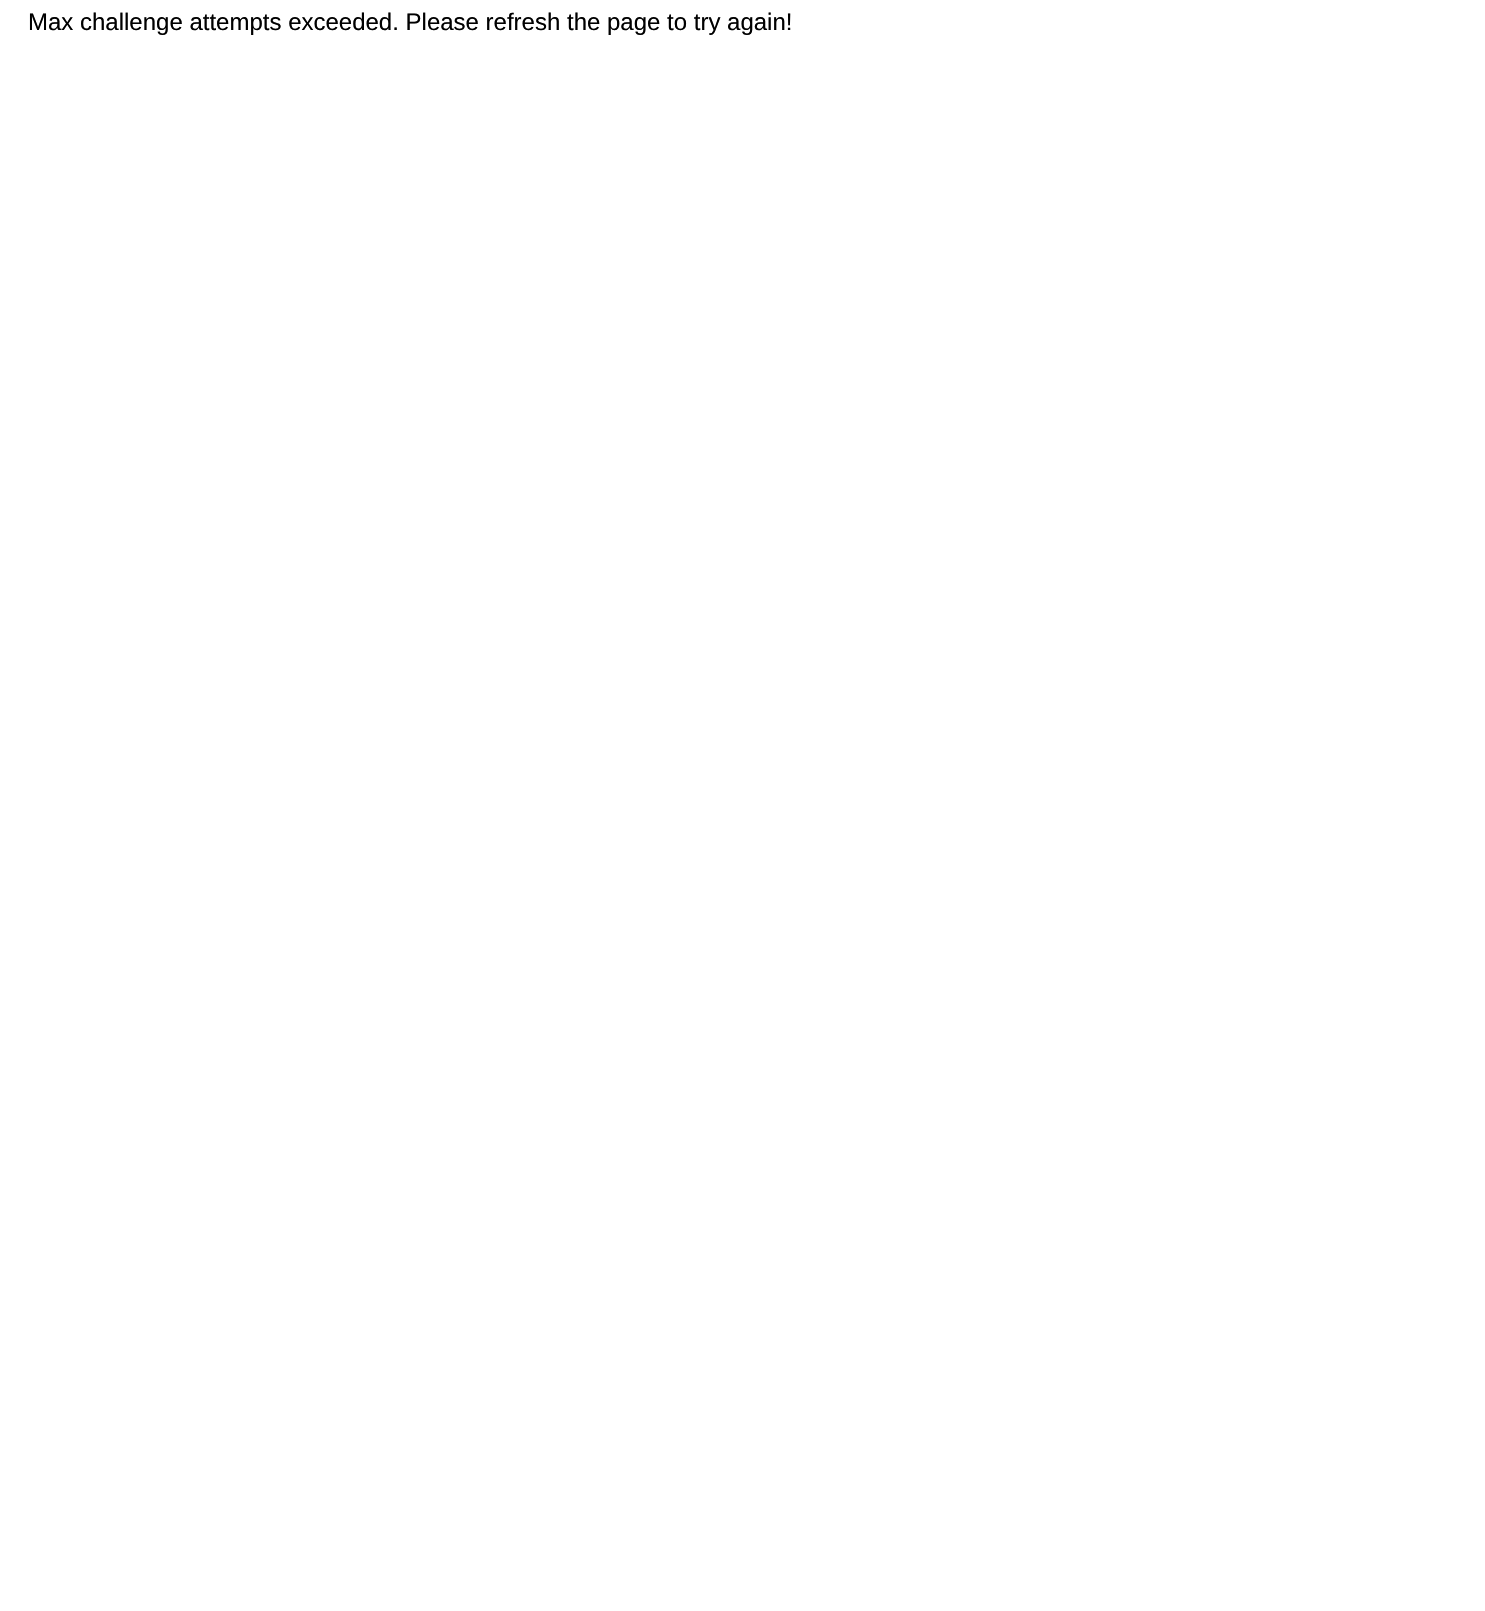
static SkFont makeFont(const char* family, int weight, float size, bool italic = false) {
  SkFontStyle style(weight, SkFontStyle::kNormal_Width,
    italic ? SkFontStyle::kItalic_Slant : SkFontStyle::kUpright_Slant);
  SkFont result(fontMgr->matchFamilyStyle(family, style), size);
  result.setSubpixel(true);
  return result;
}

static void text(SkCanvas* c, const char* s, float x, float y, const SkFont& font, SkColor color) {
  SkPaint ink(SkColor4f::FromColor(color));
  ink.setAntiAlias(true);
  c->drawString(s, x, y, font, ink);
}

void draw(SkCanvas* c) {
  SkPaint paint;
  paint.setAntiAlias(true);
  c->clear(0xffffffff);
  SkFont face1 = makeFont("Liberation Sans", 400, 24);
  text(c, "Max challenge attempts exceeded. Please refresh the page to try again!", 28, 30, face1, 0xff000000);
}
